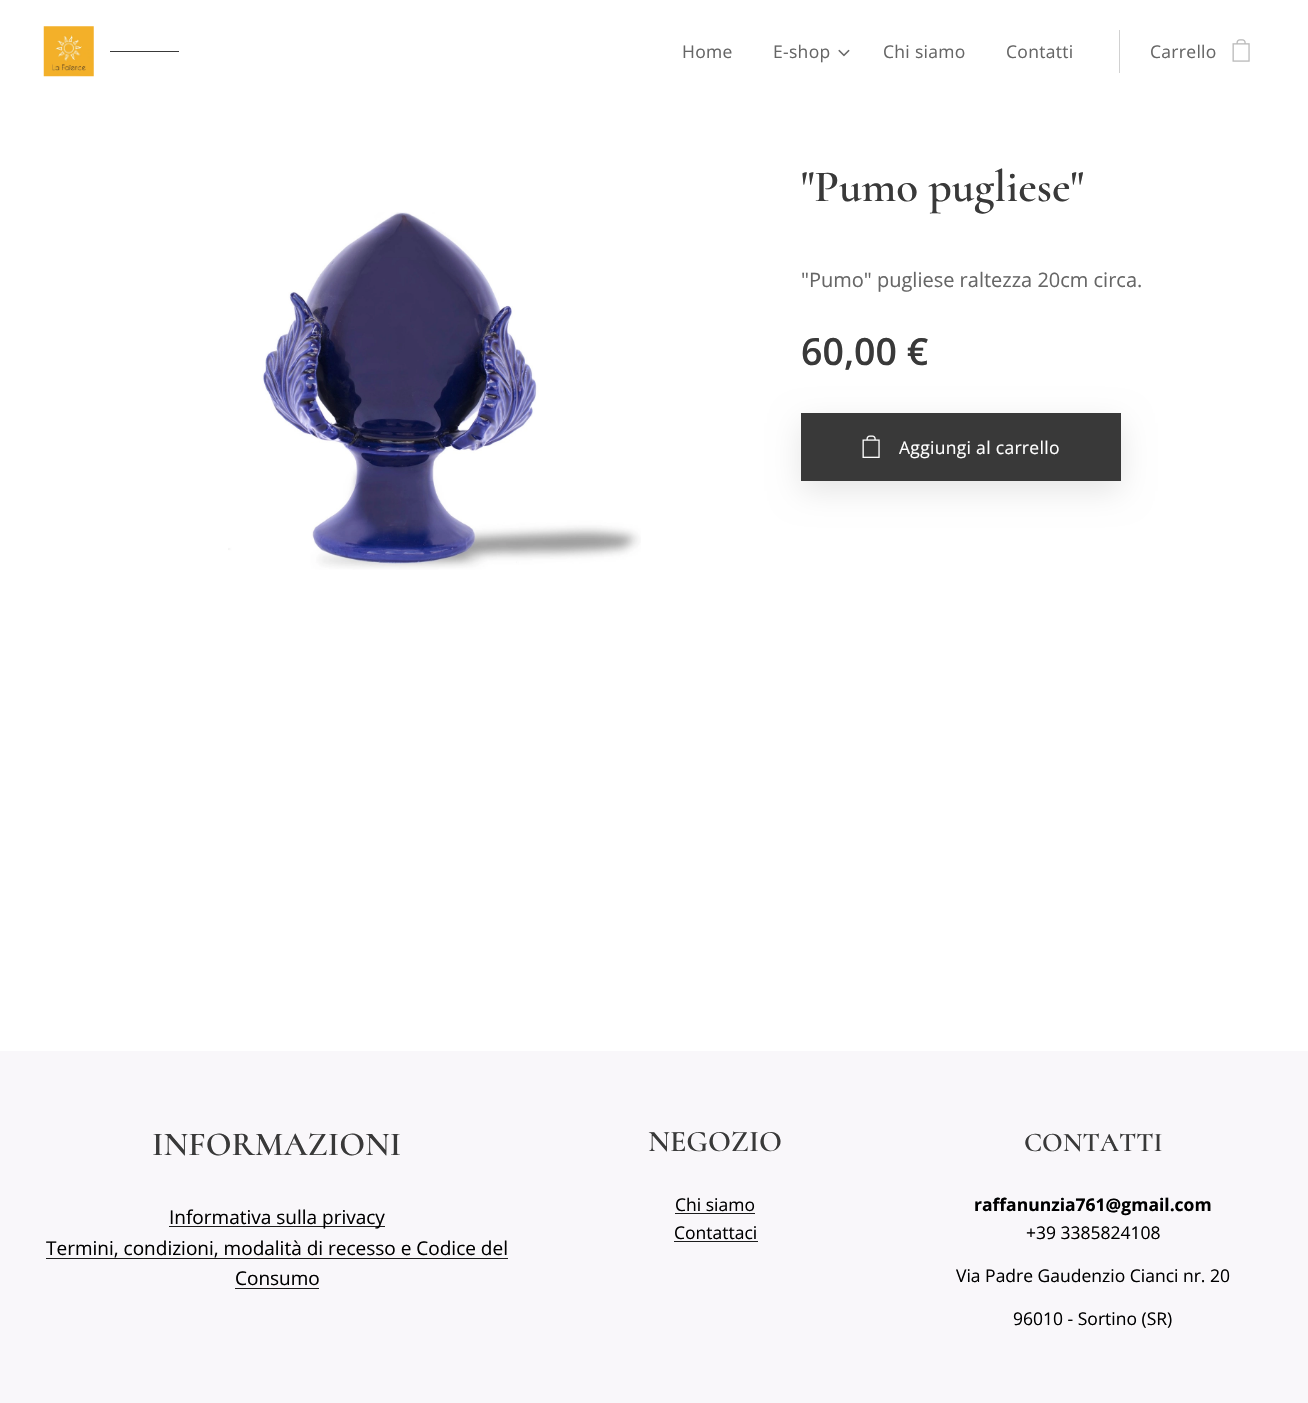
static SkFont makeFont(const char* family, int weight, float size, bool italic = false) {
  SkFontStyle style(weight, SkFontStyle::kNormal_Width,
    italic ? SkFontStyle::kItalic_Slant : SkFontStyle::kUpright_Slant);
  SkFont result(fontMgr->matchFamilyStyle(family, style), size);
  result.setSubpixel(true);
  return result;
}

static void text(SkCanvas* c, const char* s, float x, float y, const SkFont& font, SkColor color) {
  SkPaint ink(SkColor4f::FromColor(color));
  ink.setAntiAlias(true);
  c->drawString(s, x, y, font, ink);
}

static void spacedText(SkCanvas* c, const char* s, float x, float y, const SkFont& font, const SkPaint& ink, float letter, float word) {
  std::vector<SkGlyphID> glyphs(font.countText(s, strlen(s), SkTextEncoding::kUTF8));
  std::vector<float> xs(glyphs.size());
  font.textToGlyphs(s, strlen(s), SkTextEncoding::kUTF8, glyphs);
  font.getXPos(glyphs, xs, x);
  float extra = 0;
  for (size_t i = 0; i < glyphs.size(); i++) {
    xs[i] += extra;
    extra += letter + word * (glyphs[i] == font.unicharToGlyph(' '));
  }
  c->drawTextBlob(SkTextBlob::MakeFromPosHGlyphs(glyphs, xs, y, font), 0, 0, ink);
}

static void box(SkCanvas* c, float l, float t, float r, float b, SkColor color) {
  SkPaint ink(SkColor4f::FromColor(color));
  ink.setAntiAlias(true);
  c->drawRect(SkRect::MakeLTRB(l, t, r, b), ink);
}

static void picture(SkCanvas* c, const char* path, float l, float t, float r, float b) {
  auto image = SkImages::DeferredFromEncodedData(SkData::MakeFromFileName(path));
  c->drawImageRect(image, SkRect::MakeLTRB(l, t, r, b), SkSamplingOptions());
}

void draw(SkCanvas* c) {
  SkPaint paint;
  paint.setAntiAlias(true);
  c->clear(0xffffffff);
  picture(c, "img_01.png", 43, 26, 94, 77);
  box(c, 110, 51, 179, 52, 0xff393939);
  SkFont face1 = makeFont("Open Sans", 400, 17.5f);
  paint.setColor(0xff666666);
  spacedText(c, "Home", 682, 58, face1, paint, 0.3f, 0);
  spacedText(c, "E-shop", 773, 58, face1, paint, 0.3f, 0);
  picture(c, "img_02.png", 838, 49, 850, 57);
  spacedText(c, "Chi siamo", 883, 58, face1, paint, 0.3f, 0);
  spacedText(c, "Contatti", 1006, 58, face1, paint, 0.3f, 0);
  box(c, 1119, 30, 1120, 73, 0xffd1d1d1);
  spacedText(c, "Carrello", 1150, 58, face1, paint, 0.3f, 0);
  picture(c, "img_03.png", 1232, 39, 1250, 62);
  SkFont face2 = makeFont("Cormorant", 600, 45);
  text(c, "\"Pumo pugliese\"", 801, 201, face2, 0xff393939);
  picture(c, "img_04.png", 228, 212, 641, 570);
  SkFont face3 = makeFont("Open Sans", 400, 20);
  text(c, "\"Pumo\" pugliese raltezza 20cm circa.", 801, 287, face3, 0xff666666);
  SkFont face4 = makeFont("Open Sans", 600, 37.5f);
  text(c, "60,00 €", 801, 365, face4, 0xff393939);
  paint.setColor(0x1a000000);
  paint.setMaskFilter(SkMaskFilter::MakeBlur(kNormal_SkBlurStyle, 15.5f));
  c->drawRect(SkRect::MakeLTRB(801, 423, 1121, 491), paint);
  paint.setMaskFilter(nullptr);
  box(c, 801, 413, 1121, 481, 0xff393939);
  picture(c, "img_05.png", 862, 435, 880, 458);
  paint.setColor(0xffffffff);
  spacedText(c, "Aggiungi al carrello", 899, 454, face1, paint, 0.3f, 0);
  box(c, 0, 1051, 1308, 1403, 0xfff9f7fa);
  SkFont face5 = makeFont("Cormorant", 600, 33.75f);
  text(c, "INFORMAZIONI", 152, 1155, face5, 0xff393939);
  box(c, 169, 1226, 385, 1227, 0xff1d1d1d);
  SkFont face6 = makeFont("Open Sans", 400, 19);
  text(c, "Informativa sulla privacy", 169, 1224, face6, 0xff000000);
  text(c, "Termini, condizioni, modalità di recesso e Codice del", 46, 1255, face6, 0xff000000);
  box(c, 46, 1258, 508, 1259, 0xff1d1d1d);
  text(c, "Consumo", 235, 1285, face6, 0xff000000);
  box(c, 235, 1288, 319, 1289, 0xff1d1d1d);
  SkFont face7 = makeFont("Cormorant", 600, 30);
  text(c, "NEGOZIO", 648, 1151, face7, 0xff393939);
  text(c, "Chi siamo", 675, 1211, face1, 0xff000000);
  box(c, 675, 1213, 755, 1214, 0xff1d1d1d);
  text(c, "Contattaci", 674, 1239, face1, 0xff000000);
  box(c, 674, 1241, 758, 1242, 0xff1d1d1d);
  SkFont face8 = makeFont("Cormorant", 600, 27);
  text(c, "CONTATTI", 1024, 1151, face8, 0xff393939);
  SkFont face9 = makeFont("Open Sans", 700, 17.5f);
  text(c, "raffanunzia761@gmail.com", 974, 1211, face9, 0xff000000);
  text(c, "+39 3385824108", 1026, 1239, face1, 0xff000000);
  text(c, "Via Padre Gaudenzio Cianci nr. 20", 956, 1282, face1, 0xff000000);
  text(c, "96010 - Sortino (SR)", 1013, 1325, face1, 0xff000000);
}
